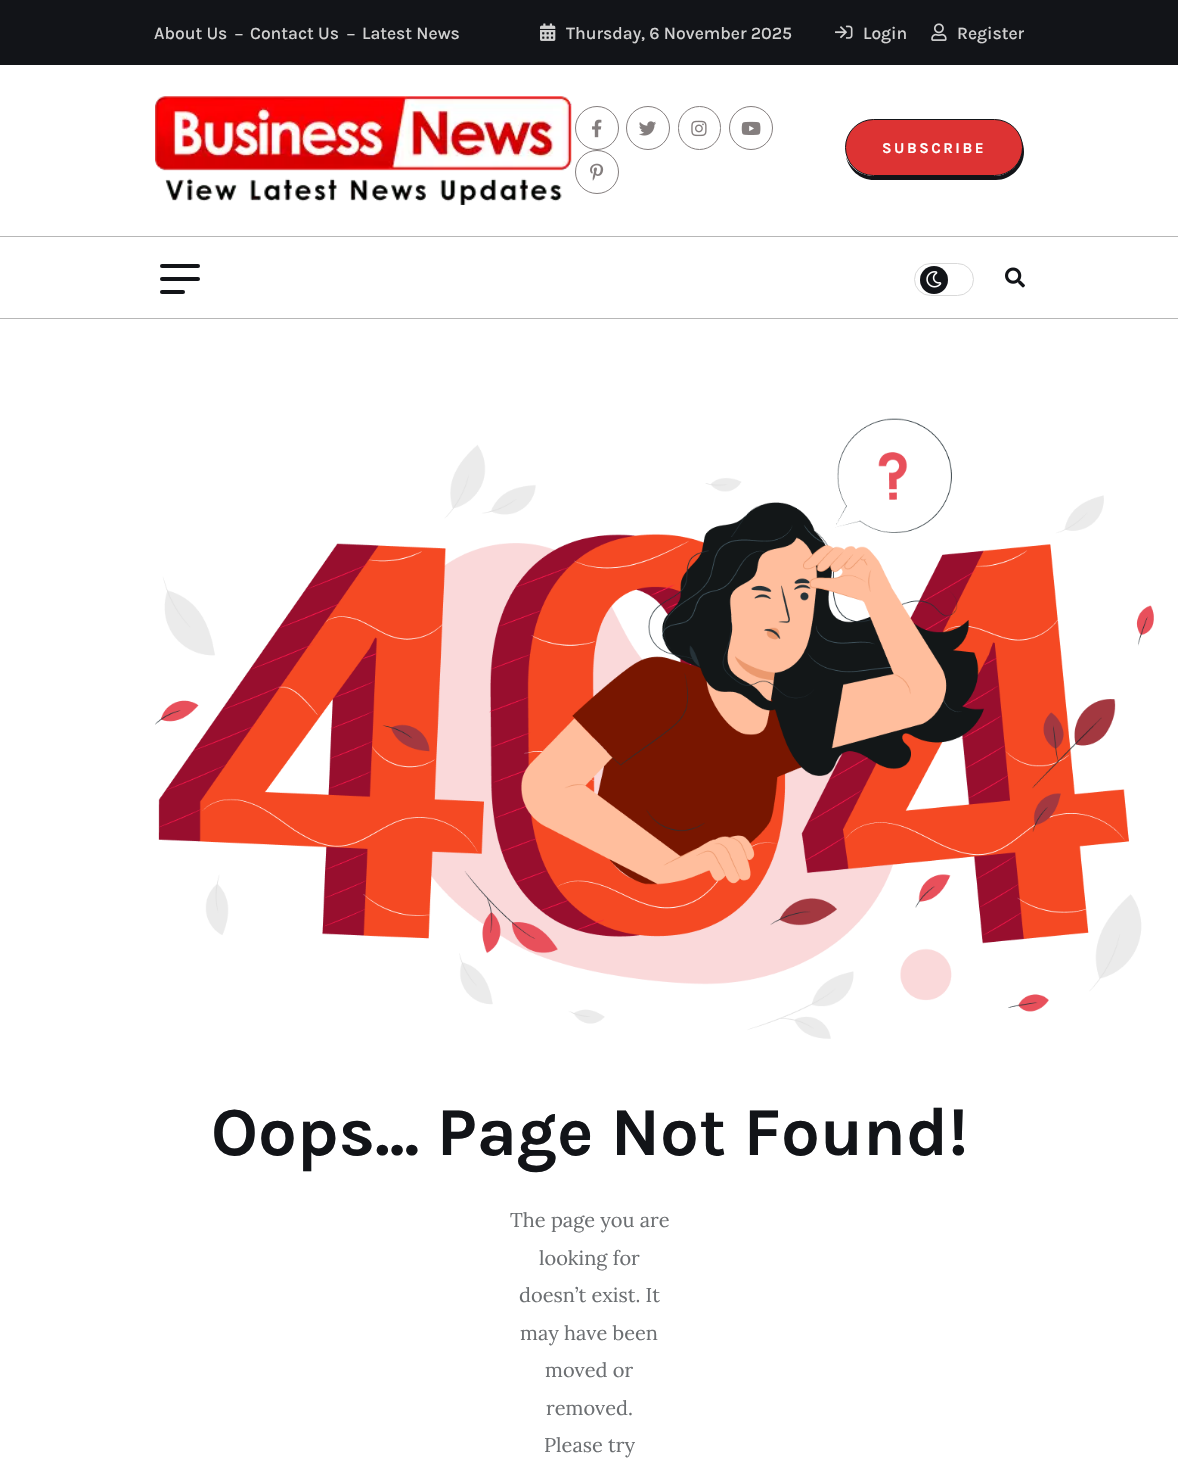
static SkFont makeFont(const char* family, int weight, float size, bool italic = false) {
  SkFontStyle style(weight, SkFontStyle::kNormal_Width,
    italic ? SkFontStyle::kItalic_Slant : SkFontStyle::kUpright_Slant);
  SkFont result(fontMgr->matchFamilyStyle(family, style), size);
  result.setSubpixel(true);
  return result;
}

static void text(SkCanvas* c, const char* s, float x, float y, const SkFont& font, SkColor color) {
  SkPaint ink(SkColor4f::FromColor(color));
  ink.setAntiAlias(true);
  c->drawString(s, x, y, font, ink);
}

static void spacedText(SkCanvas* c, const char* s, float x, float y, const SkFont& font, const SkPaint& ink, float letter, float word) {
  std::vector<SkGlyphID> glyphs(font.countText(s, strlen(s), SkTextEncoding::kUTF8));
  std::vector<float> xs(glyphs.size());
  font.textToGlyphs(s, strlen(s), SkTextEncoding::kUTF8, glyphs);
  font.getXPos(glyphs, xs, x);
  float extra = 0;
  for (size_t i = 0; i < glyphs.size(); i++) {
    xs[i] += extra;
    extra += letter + word * (glyphs[i] == font.unicharToGlyph(' '));
  }
  c->drawTextBlob(SkTextBlob::MakeFromPosHGlyphs(glyphs, xs, y, font), 0, 0, ink);
}

static void box(SkCanvas* c, float l, float t, float r, float b, SkColor color) {
  SkPaint ink(SkColor4f::FromColor(color));
  ink.setAntiAlias(true);
  c->drawRect(SkRect::MakeLTRB(l, t, r, b), ink);
}

static void roundBox(SkCanvas* c, float l, float t, float r, float b, float radius, SkColor color) {
  SkPaint ink(SkColor4f::FromColor(color));
  ink.setAntiAlias(true);
  c->drawRoundRect(SkRect::MakeLTRB(l, t, r, b), radius, radius, ink);
}

static void picture(SkCanvas* c, const char* path, float l, float t, float r, float b) {
  auto image = SkImages::DeferredFromEncodedData(SkData::MakeFromFileName(path));
  c->drawImageRect(image, SkRect::MakeLTRB(l, t, r, b), SkSamplingOptions());
}

void draw(SkCanvas* c) {
  SkPaint paint;
  paint.setAntiAlias(true);
  c->clear(0xffffffff);
  box(c, 0, 0, 1178, 65, 0xff121418);
  SkFont face1 = makeFont("Karla", 500, 17.5f);
  text(c, "About Us", 154, 39, face1, 0xffd1d1d1);
  SkFont face2 = makeFont("Lora", 400, 20);
  text(c, "-", 234, 41, face2, 0xffd1d1d1);
  text(c, "Contact Us", 250, 39, face1, 0xffd1d1d1);
  text(c, "-", 346, 41, face2, 0xffd1d1d1);
  text(c, "Latest News", 362, 39, face1, 0xffd1d1d1);
  picture(c, "img_01.png", 540, 23, 556, 41);
  text(c, "Thursday, 6 November 2025", 566, 39, face1, 0xffd1d1d1);
  picture(c, "img_02.png", 835, 25, 853, 39);
  text(c, "Login", 863, 39, face1, 0xffd1d1d1);
  picture(c, "img_03.png", 931, 23, 947, 41);
  text(c, "Register", 957, 39, face1, 0xffd1d1d1);
  box(c, 0, 236, 1178, 237, 0xffb7b7b7);
  picture(c, "img_04.png", 155, 96, 572, 205);
  paint.setStyle(SkPaint::kStroke_Style);
  paint.setStrokeWidth(1);
  paint.setColor(0xff847e7e);
  c->drawCircle(597, 128, 21.5f, paint);
  picture(c, "img_05.png", 592, 119, 602, 138);
  c->drawCircle(648, 128, 21.5f, paint);
  picture(c, "img_06.png", 639, 121, 656, 136);
  c->drawRoundRect(SkRect::MakeLTRB(678.5f, 106.5f, 720.5f, 149.5f), 21, 21, paint);
  picture(c, "img_07.png", 691, 120, 707, 137);
  c->drawCircle(751, 128, 21.5f, paint);
  picture(c, "img_08.png", 741, 121, 761, 135);
  c->drawCircle(597, 172, 21.5f, paint);
  picture(c, "img_09.png", 590, 163, 604, 181);
  paint.setStyle(SkPaint::kFill_Style);
  paint.setColor(0xff121418);
  c->drawPath(SkPathBuilder().moveTo(846, 157).cubicTo(849, 170, 860, 180, 874, 180).lineTo(996, 180).cubicTo(1011, 180, 1024, 167, 1024, 152).cubicTo(1024, 147, 1023, 143, 1021, 140).cubicTo(1022, 142, 1022, 145, 1022, 148).cubicTo(1022, 163, 1010, 176, 994, 176).lineTo(874, 176).cubicTo(861, 176, 850, 168, 846, 157).close().detach(), paint);
  paint.setColor(0xffdd3333);
  c->drawRoundRect(SkRect::MakeLTRB(845.5f, 119.5f, 1022.5f, 175.5f), 28, 28, paint);
  paint.setStyle(SkPaint::kStroke_Style);
  paint.setColor(0xff121418);
  c->drawRoundRect(SkRect::MakeLTRB(845.5f, 119.5f, 1022.5f, 175.5f), 28, 28, paint);
  SkFont face3 = makeFont("Karla", 700, 15);
  paint.setStyle(SkPaint::kFill_Style);
  paint.setColor(0xffffffff);
  spacedText(c, "SUBSCRIBE", 882, 153, face3, paint, 2.5f, 0);
  box(c, 0, 318, 1178, 319, 0xffb7b7b7);
  roundBox(c, 160, 264, 200, 268, 2, 0xff121418);
  roundBox(c, 160, 277, 200, 281, 2, 0xff121418);
  roundBox(c, 160, 290, 185, 294, 2, 0xff121418);
  paint.setStyle(SkPaint::kStroke_Style);
  paint.setColor(0xffd9d9d9);
  c->drawRoundRect(SkRect::MakeLTRB(914.5f, 263.5f, 973.5f, 295.5f), 16, 16, paint);
  paint.setStyle(SkPaint::kFill_Style);
  paint.setColor(0xff121418);
  c->drawCircle(934, 280, 14, paint);
  picture(c, "img_10.png", 926, 271, 942, 288);
  picture(c, "img_11.png", 1005, 267, 1025, 288);
  picture(c, "img_12.png", 155, 418, 1154, 1039);
  SkFont face4 = makeFont("Karla", 700, 68.75f);
  text(c, "Oops... Page Not Found!", 211, 1155, face4, 0xff121418);
  text(c, "The page you are", 510, 1227, face2, 0xff6c6f72);
  text(c, "looking for", 539, 1265, face2, 0xff6c6f72);
  text(c, "doesn’t exist. It", 519, 1302, face2, 0xff6c6f72);
  text(c, "may have been", 520, 1340, face2, 0xff6c6f72);
  text(c, "moved or", 545, 1377, face2, 0xff6c6f72);
  text(c, "removed.", 546, 1415, face2, 0xff6c6f72);
  text(c, "Please try", 544, 1452, face2, 0xff6c6f72);
}
